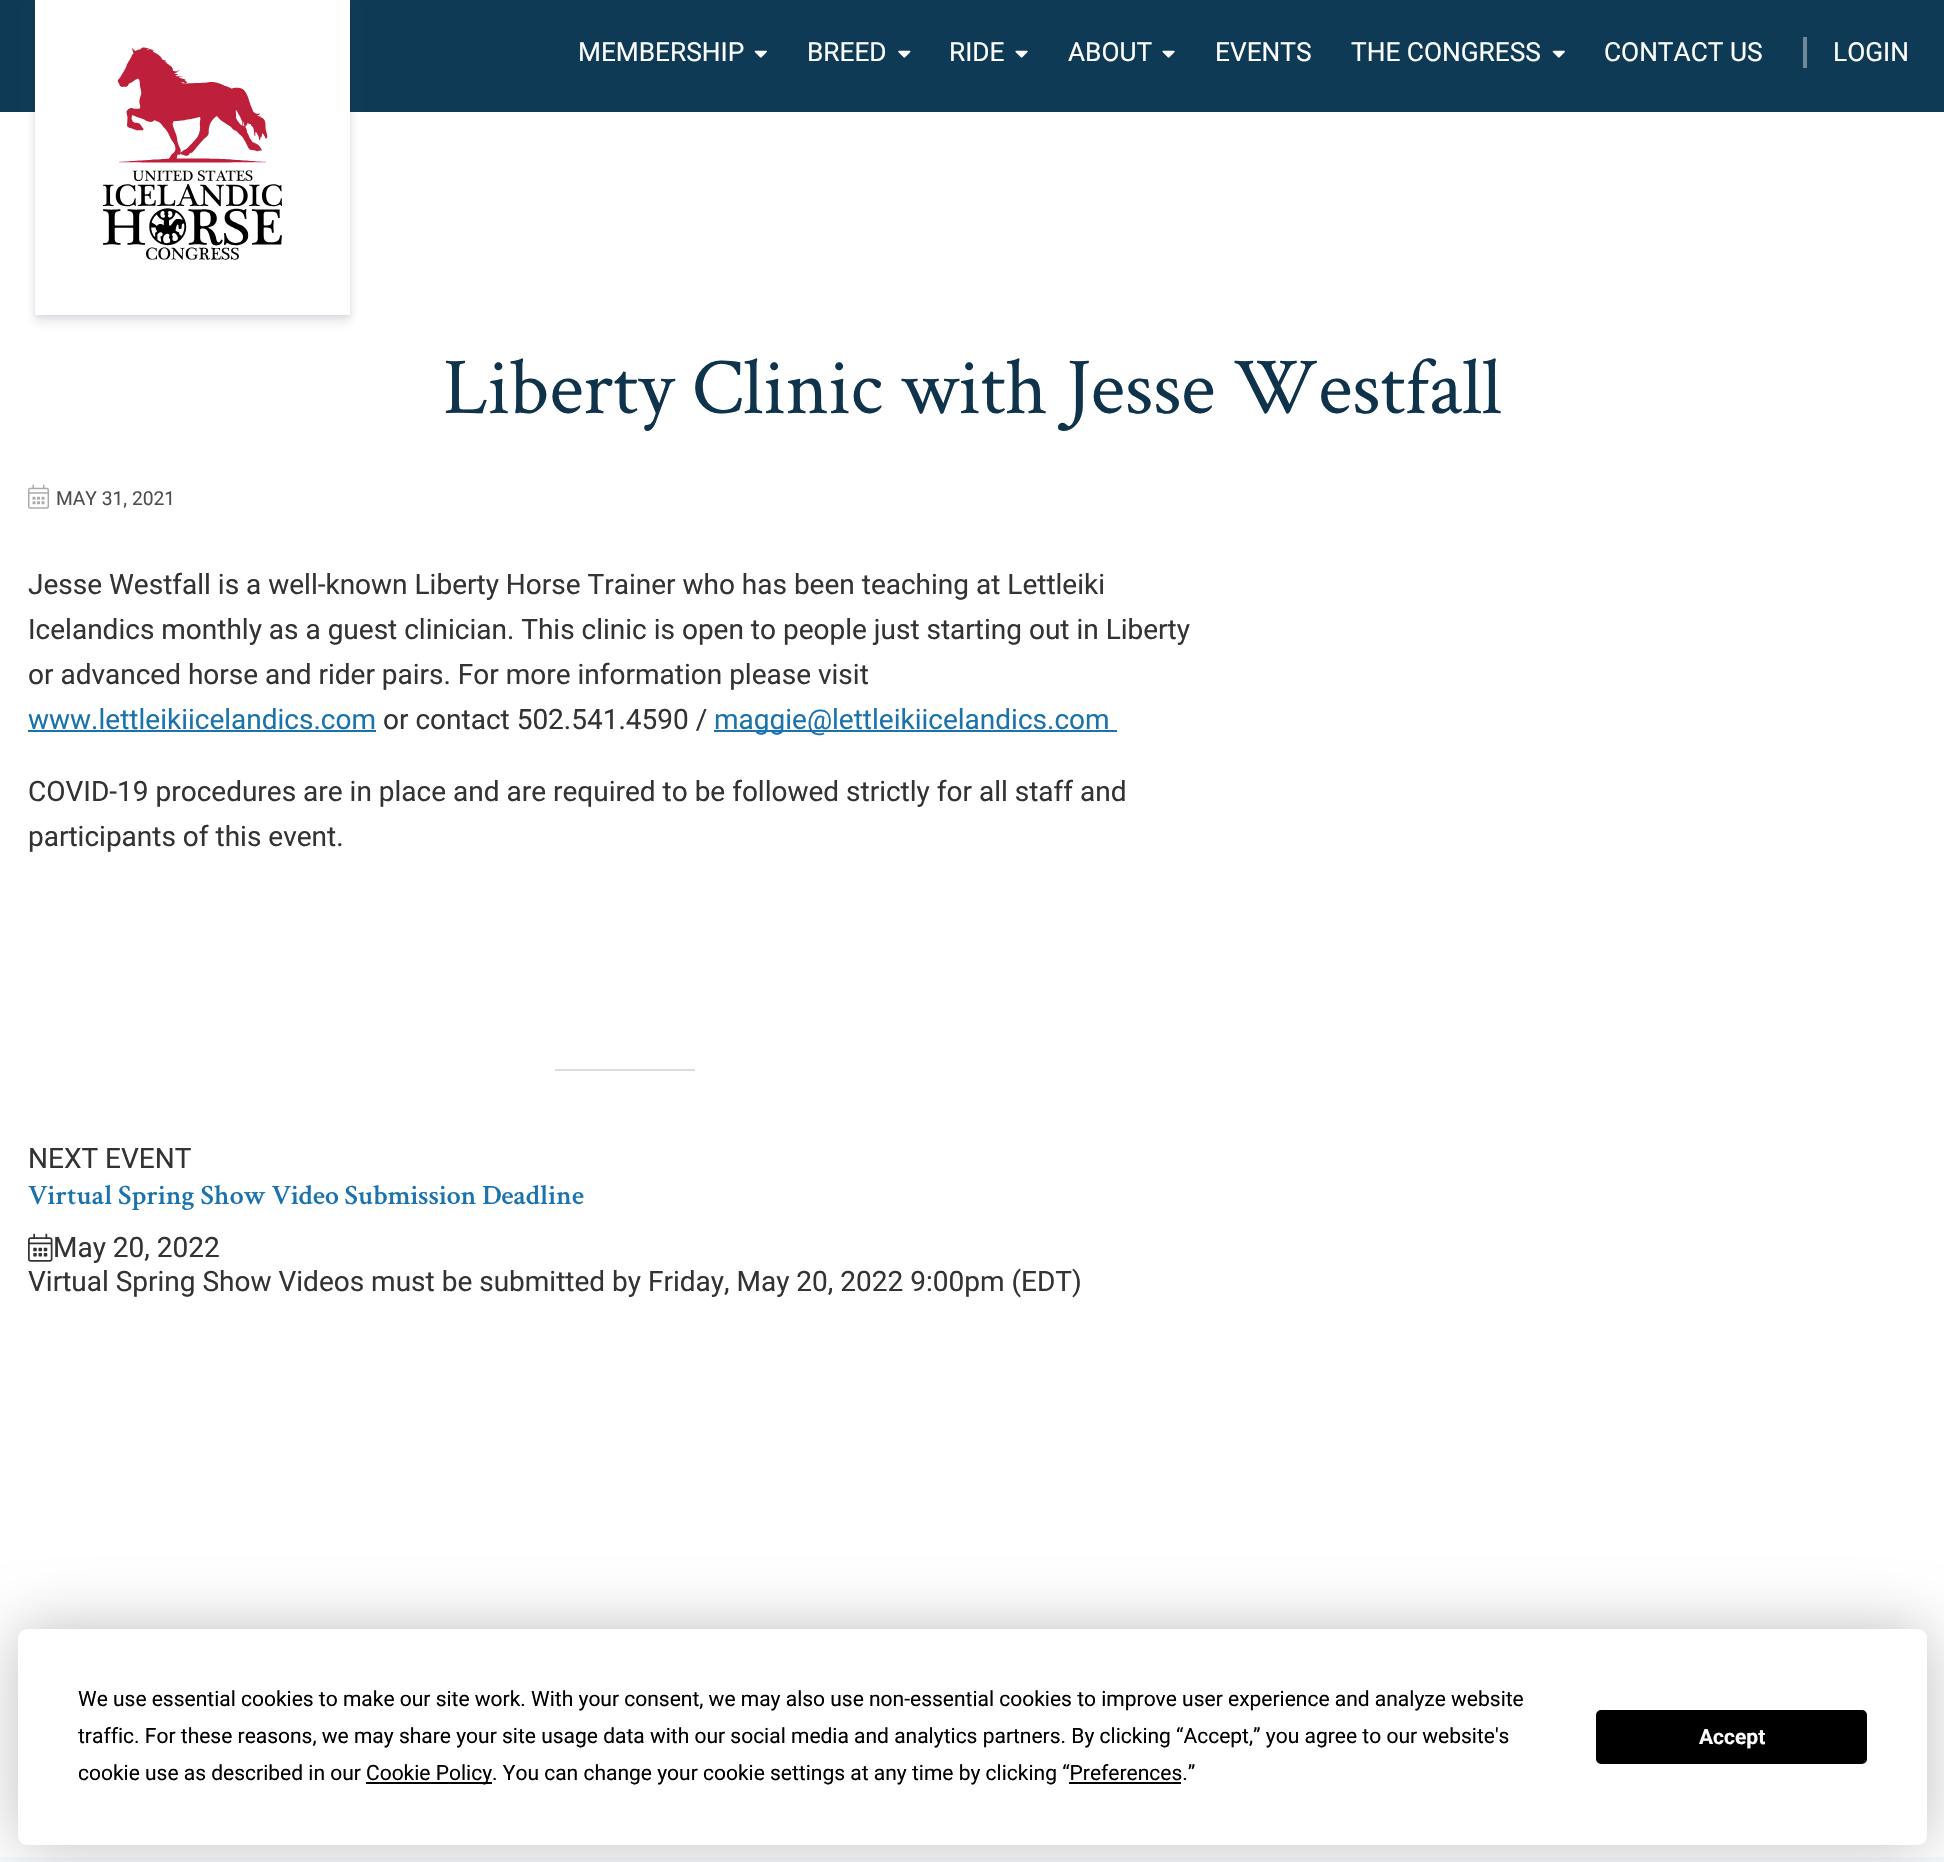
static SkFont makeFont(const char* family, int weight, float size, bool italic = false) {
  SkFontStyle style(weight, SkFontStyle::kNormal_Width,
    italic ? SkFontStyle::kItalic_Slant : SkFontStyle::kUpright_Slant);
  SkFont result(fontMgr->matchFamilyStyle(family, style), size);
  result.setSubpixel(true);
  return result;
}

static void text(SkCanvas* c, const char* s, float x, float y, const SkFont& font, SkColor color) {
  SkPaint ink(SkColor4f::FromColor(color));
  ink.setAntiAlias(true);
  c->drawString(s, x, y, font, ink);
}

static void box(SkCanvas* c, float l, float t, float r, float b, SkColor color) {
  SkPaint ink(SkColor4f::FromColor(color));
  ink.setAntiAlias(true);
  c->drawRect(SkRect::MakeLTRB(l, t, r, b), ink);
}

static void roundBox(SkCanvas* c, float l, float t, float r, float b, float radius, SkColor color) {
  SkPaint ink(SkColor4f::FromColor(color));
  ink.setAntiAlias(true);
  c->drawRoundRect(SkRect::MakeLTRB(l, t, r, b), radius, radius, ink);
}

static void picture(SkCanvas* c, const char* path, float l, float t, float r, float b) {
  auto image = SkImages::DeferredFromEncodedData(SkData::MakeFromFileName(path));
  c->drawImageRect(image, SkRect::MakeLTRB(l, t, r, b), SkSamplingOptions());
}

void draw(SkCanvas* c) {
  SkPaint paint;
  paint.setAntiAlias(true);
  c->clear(0xffffffff);
  box(c, 0, 0, 1944, 112, 0xff0f3a56);
  paint.setColor(0x14000000);
  paint.setMaskFilter(SkMaskFilter::MakeBlur(kNormal_SkBlurStyle, 2.5f));
  c->drawRect(SkRect::MakeLTRB(35, 2, 350, 317), paint);
  paint.setMaskFilter(nullptr);
  paint.setColor(0x1c32325d);
  paint.setMaskFilter(SkMaskFilter::MakeBlur(kNormal_SkBlurStyle, 5));
  c->drawRect(SkRect::MakeLTRB(35, 7, 350, 322), paint);
  paint.setMaskFilter(nullptr);
  box(c, 35, 0, 350, 315, 0xffffffff);
  picture(c, "img_01.png", 103, 47, 282, 260);
  SkFont face1 = makeFont("Roboto", 400, 26.25f);
  text(c, "MEMBERSHIP", 578, 61, face1, 0xffffffff);
  picture(c, "img_02.png", 754, 50, 767, 58);
  text(c, "BREED", 807, 61, face1, 0xffffffff);
  picture(c, "img_03.png", 898, 50, 911, 58);
  text(c, "RIDE", 949, 61, face1, 0xffffffff);
  picture(c, "img_04.png", 1015, 50, 1028, 58);
  text(c, "ABOUT", 1068, 61, face1, 0xffffffff);
  picture(c, "img_04.png", 1162, 50, 1175, 58);
  text(c, "EVENTS", 1215, 61, face1, 0xffffffff);
  text(c, "THE CONGRESS", 1351, 61, face1, 0xffffffff);
  picture(c, "img_02.png", 1552, 50, 1565, 58);
  text(c, "CONTACT US", 1604, 61, face1, 0xffffffff);
  box(c, 1803, 37, 1807, 68, 0xff6f899a);
  text(c, "LOGIN", 1833, 61, face1, 0xffffffff);
  SkFont face2 = makeFont("Crimson Text", 400, 80.75f);
  text(c, "Liberty Clinic with Jesse Westfall", 443, 413, face2, 0xff10334c);
  picture(c, "img_05.png", 28, 484, 50, 509);
  SkFont face3 = makeFont("Roboto", 400, 19.25f);
  text(c, "MAY 31, 2021", 56, 505, face3, 0xff4e4e4e);
  SkFont face4 = makeFont("Roboto", 400, 28);
  text(c, "Jesse Westfall is a well-known Liberty Horse Trainer who has been teaching at Lettleiki", 28, 594, face4, 0xff333333);
  text(c, "Icelandics monthly as a guest clinician. This clinic is open to people just starting out in Liberty", 28, 639, face4, 0xff333333);
  text(c, "or advanced horse and rider pairs. For more information please visit", 28, 684, face4, 0xff333333);
  text(c, "www.lettleikiicelandics.com", 28, 729, face4, 0xff1a73ad);
  box(c, 28, 730, 376, 732, 0xff1a73ad);
  text(c, "or contact 502.541.4590 /", 383, 729, face4, 0xff333333);
  box(c, 714, 730, 1117, 732, 0xff1a73ad);
  text(c, "maggie@lettleikiicelandics.com", 714, 729, face4, 0xff1a73ad);
  text(c, "COVID-19 procedures are in place and are required to be followed strictly for all staff and", 28, 801, face4, 0xff333333);
  text(c, "participants of this event.", 28, 846, face4, 0xff333333);
  box(c, 555, 1069, 695, 1071, 0xffdddddd);
  text(c, "NEXT EVENT", 28, 1168, face4, 0xff333333);
  SkFont face5 = makeFont("Crimson Text", 600, 28);
  text(c, "Virtual Spring Show Video Submission Deadline", 28, 1204, face5, 0xff1a73ad);
  picture(c, "img_06.png", 28, 1233, 53, 1262);
  text(c, "May 20, 2022", 53, 1257, face4, 0xff333333);
  text(c, "Virtual Spring Show Videos must be submitted by Friday, May 20, 2022 9:00pm (EDT)", 28, 1291, face4, 0xff333333);
  box(c, 0, 1857, 1944, 1862, 0xfff6f9fc);
  paint.setColor(0x40000000);
  paint.setMaskFilter(SkMaskFilter::MakeBlur(kNormal_SkBlurStyle, 30.5f));
  c->drawRoundRect(SkRect::MakeLTRB(18, 1629, 1927, 1845), 9, 9, paint);
  paint.setMaskFilter(nullptr);
  roundBox(c, 18, 1629, 1927, 1845, 9, 0xffffffff);
  SkFont face6 = makeFont("Roboto", 400, 21);
  text(c, "We use essential cookies to make our site work. With your consent, we may also use non-essential cookies to improve user experience and analyze website", 78, 1706, face6, 0xff000000);
  text(c, "traffic. For these reasons, we may share your site usage data with our social media and analytics partners. By clicking “Accept,” you agree to our website's", 78, 1743, face6, 0xff000000);
  text(c, "cookie use as described in our", 78, 1780, face6, 0xff000000);
  box(c, 366, 1782, 492, 1784, 0xff000000);
  text(c, "Cookie Policy. You can change your cookie settings at any time by clicking “Preferences.”", 366, 1780, face6, 0xff000000);
  box(c, 1069, 1782, 1181, 1784, 0xff000000);
  paint.setColor(0xff000000);
  c->drawRoundRect(SkRect::MakeLTRB(1597, 1711, 1866, 1763), 4, 4, paint);
  paint.setStyle(SkPaint::kStroke_Style);
  paint.setStrokeWidth(2);
  c->drawRoundRect(SkRect::MakeLTRB(1597, 1711, 1866, 1763), 4, 4, paint);
  SkFont face7 = makeFont("Roboto", 700, 21);
  text(c, "Accept", 1699, 1744, face7, 0xffffffff);
}
